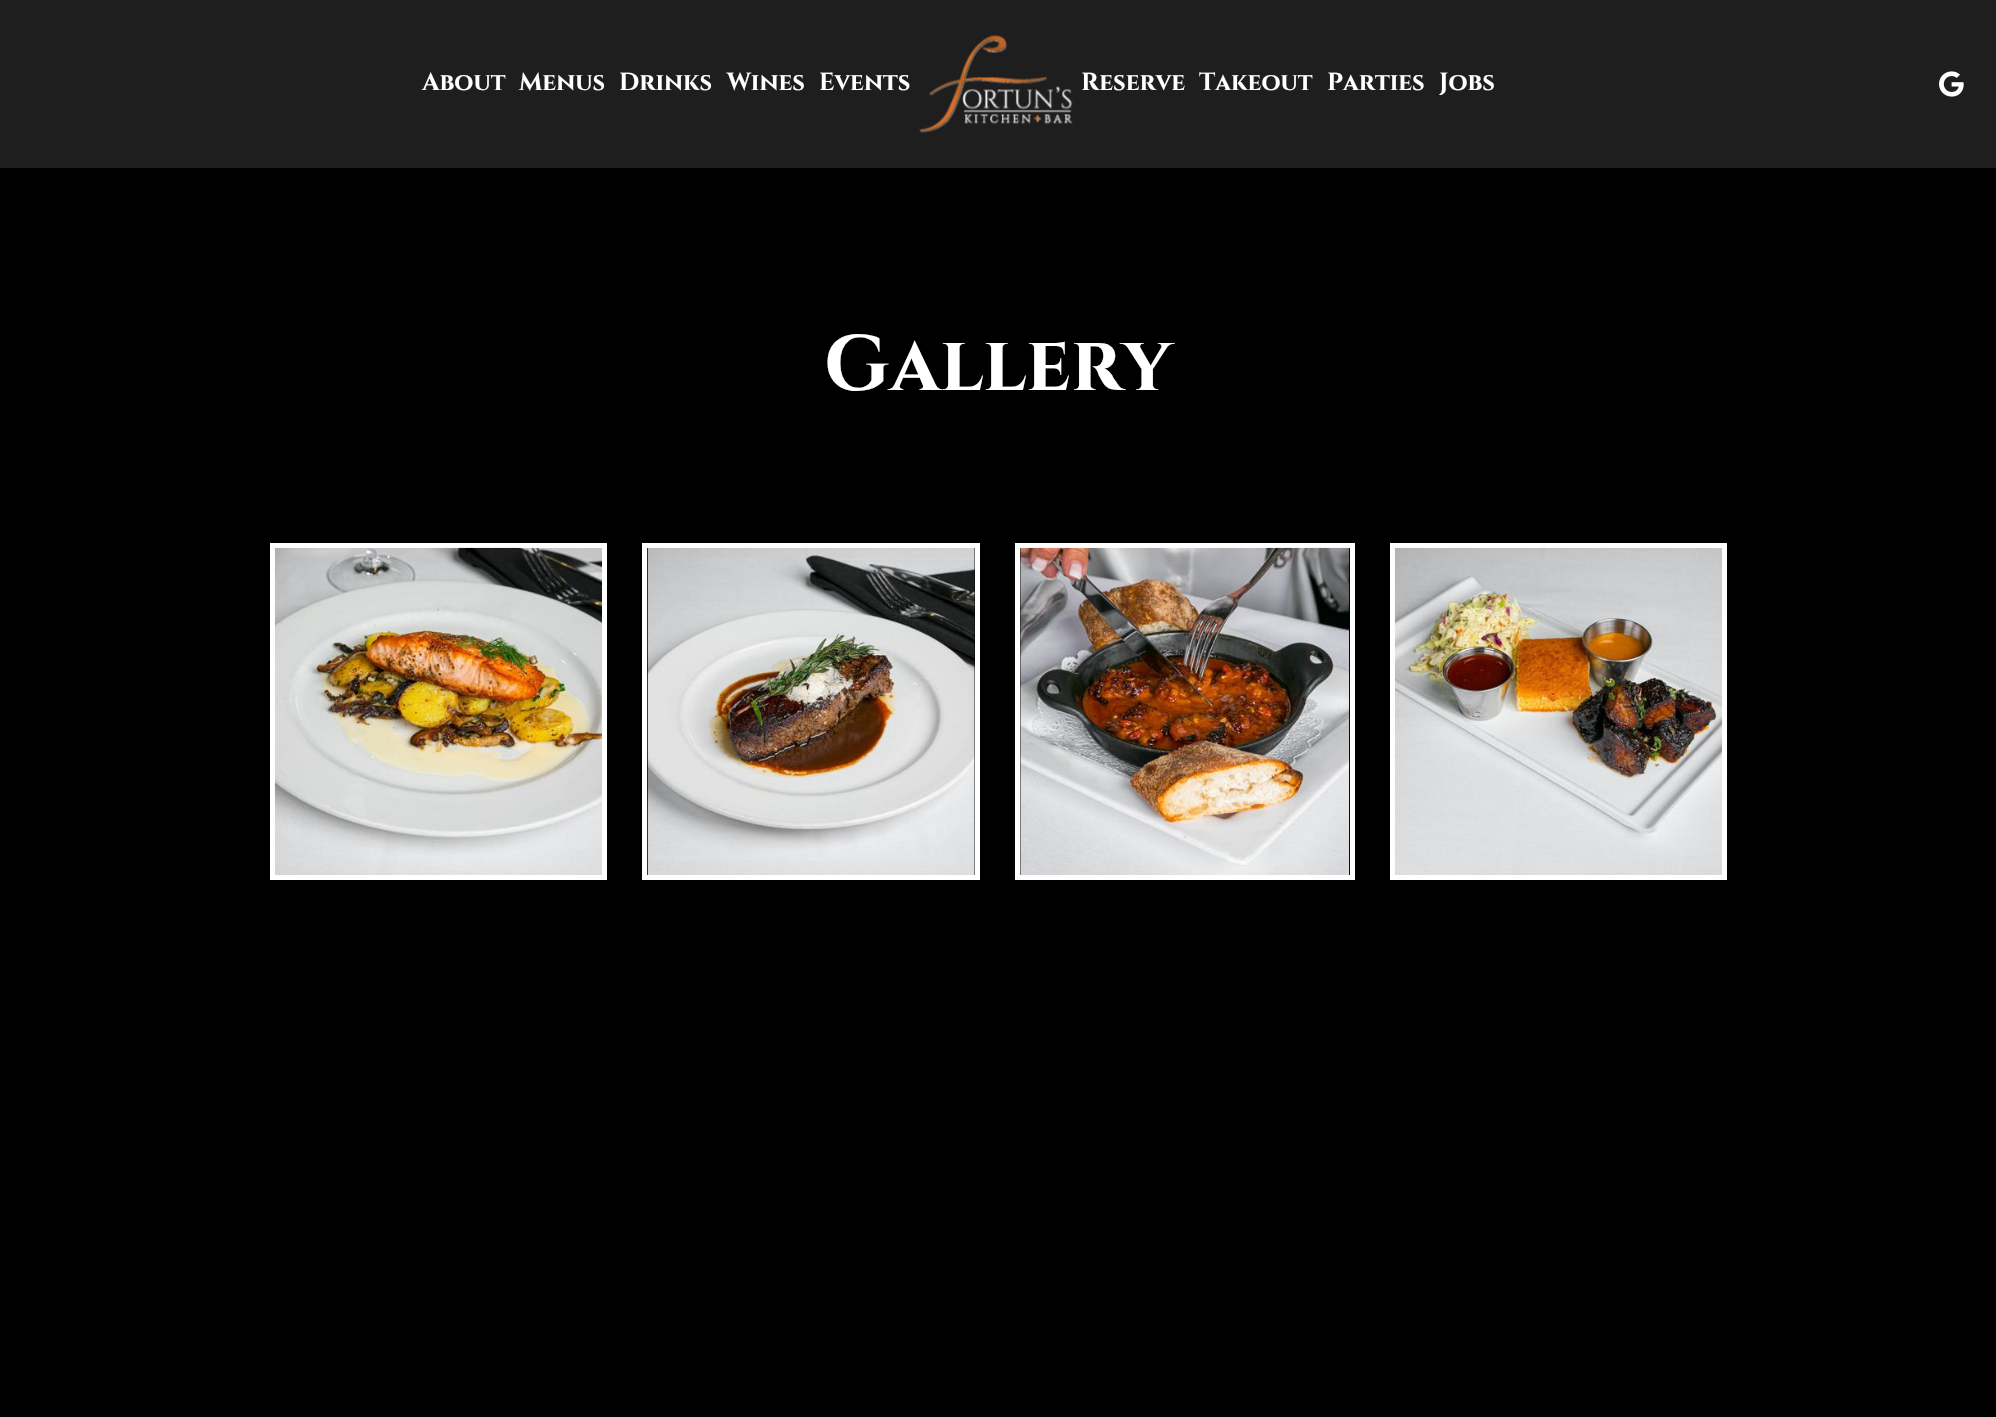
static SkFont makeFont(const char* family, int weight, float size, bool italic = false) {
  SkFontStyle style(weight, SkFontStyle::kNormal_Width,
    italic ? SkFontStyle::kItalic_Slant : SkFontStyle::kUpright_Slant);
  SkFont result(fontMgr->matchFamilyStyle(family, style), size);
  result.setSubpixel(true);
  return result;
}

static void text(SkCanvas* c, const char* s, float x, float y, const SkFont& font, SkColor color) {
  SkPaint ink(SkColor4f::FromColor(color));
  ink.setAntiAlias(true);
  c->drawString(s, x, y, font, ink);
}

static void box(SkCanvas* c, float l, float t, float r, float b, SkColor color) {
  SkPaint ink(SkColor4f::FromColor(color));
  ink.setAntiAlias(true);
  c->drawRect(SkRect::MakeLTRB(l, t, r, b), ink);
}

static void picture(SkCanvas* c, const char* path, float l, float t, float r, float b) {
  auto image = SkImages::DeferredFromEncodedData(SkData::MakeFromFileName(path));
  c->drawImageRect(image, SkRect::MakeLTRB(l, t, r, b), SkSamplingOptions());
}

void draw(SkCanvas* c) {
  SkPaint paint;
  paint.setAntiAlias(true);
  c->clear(0xff000000);
  box(c, 0, 0, 1996, 168, 0xff1e1e1e);
  SkFont face1 = makeFont("Cinzel", 700, 24.5f);
  text(c, "About", 422, 90, face1, 0xffffffff);
  text(c, "Menus", 519, 90, face1, 0xffffffff);
  text(c, "Drinks", 619, 90, face1, 0xffffffff);
  text(c, "Wines", 727, 90, face1, 0xffffffff);
  text(c, "Events", 819, 90, face1, 0xffffffff);
  picture(c, "img_01.png", 919, 35, 1073, 133);
  text(c, "Reserve", 1081, 90, face1, 0xffffffff);
  text(c, "Takeout", 1199, 90, face1, 0xffffffff);
  text(c, "Parties", 1327, 90, face1, 0xffffffff);
  text(c, "Jobs", 1439, 90, face1, 0xffffffff);
  picture(c, "img_02.png", 1939, 71, 1964, 97);
  SkFont face2 = makeFont("Cinzel", 700, 78.5f);
  text(c, "Gallery", 824, 390, face2, 0xffffffff);
  paint.setStyle(SkPaint::kStroke_Style);
  paint.setStrokeWidth(5);
  paint.setColor(0xffffffff);
  c->drawRect(SkRect::MakeLTRB(272.5f, 545.5f, 604.5f, 877.5f), paint);
  picture(c, "img_03.png", 274, 547, 602, 875);
  c->drawRect(SkRect::MakeLTRB(644.5f, 545.5f, 977.5f, 877.5f), paint);
  picture(c, "img_04.png", 647, 547, 975, 875);
  c->drawRect(SkRect::MakeLTRB(1017.5f, 545.5f, 1352.5f, 877.5f), paint);
  picture(c, "img_05.png", 1020, 547, 1350, 875);
  c->drawRect(SkRect::MakeLTRB(1392.5f, 545.5f, 1724.5f, 877.5f), paint);
  picture(c, "img_06.png", 1394, 547, 1722, 875);
}
